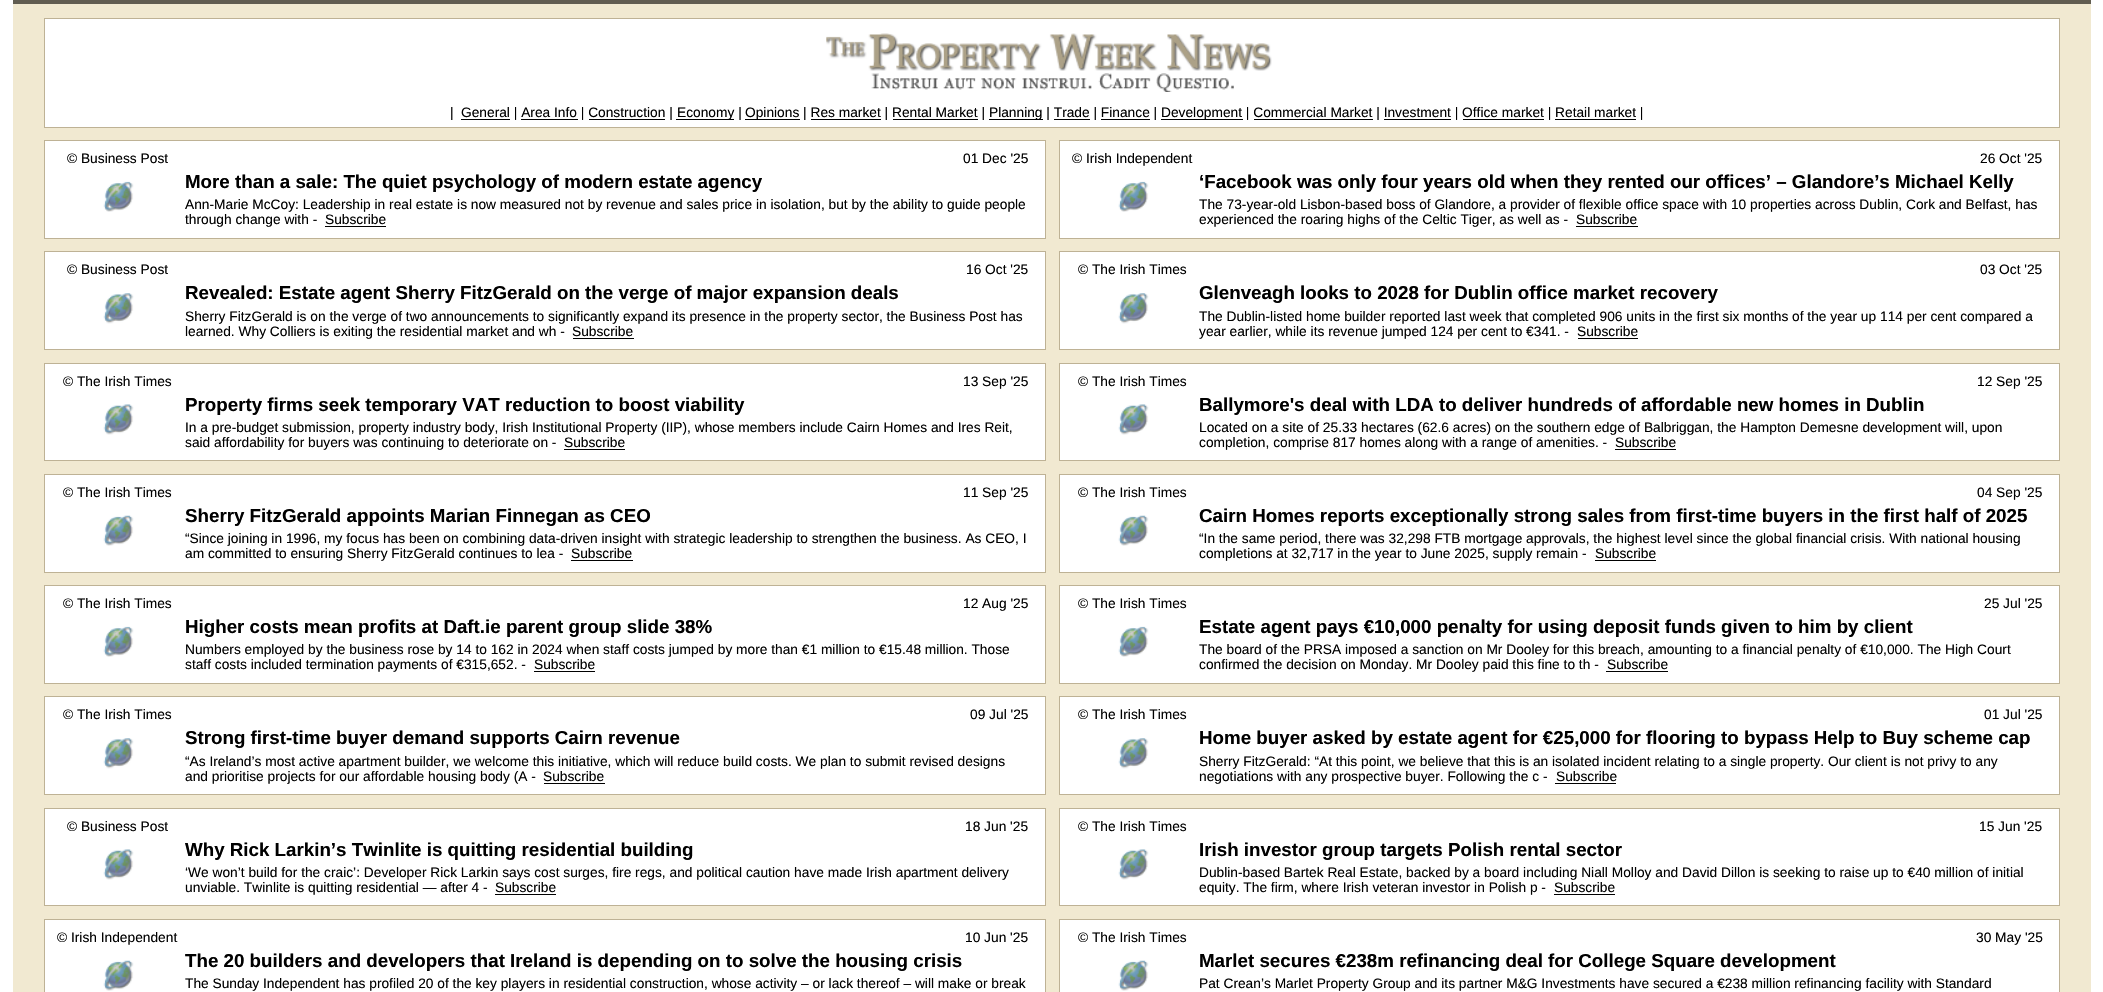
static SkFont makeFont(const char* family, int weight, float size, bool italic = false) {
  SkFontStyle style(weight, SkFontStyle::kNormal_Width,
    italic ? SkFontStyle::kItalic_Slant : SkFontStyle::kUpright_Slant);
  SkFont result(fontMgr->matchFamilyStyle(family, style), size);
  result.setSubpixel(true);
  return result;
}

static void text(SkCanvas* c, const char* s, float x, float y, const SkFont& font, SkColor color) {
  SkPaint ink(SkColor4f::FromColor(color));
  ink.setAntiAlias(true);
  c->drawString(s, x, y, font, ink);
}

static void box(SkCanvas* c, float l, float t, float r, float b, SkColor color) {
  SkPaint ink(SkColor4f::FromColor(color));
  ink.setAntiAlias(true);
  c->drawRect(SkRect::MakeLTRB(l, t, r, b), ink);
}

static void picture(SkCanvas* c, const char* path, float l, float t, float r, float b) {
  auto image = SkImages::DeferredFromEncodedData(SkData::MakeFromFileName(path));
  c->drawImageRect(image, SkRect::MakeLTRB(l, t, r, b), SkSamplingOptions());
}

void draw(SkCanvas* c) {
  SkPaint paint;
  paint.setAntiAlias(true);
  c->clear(0xffffffff);
  box(c, 13, 0, 2091, 4, 0xff615d51);
  box(c, 13, 4, 2091, 992, 0xfff1e9d1);
  paint.setColor(0xffffffff);
  c->drawRect(SkRect::MakeLTRB(44.5f, 18.5f, 2059.5f, 127.5f), paint);
  paint.setStyle(SkPaint::kStroke_Style);
  paint.setStrokeWidth(1);
  paint.setColor(0xffbeb295);
  c->drawRect(SkRect::MakeLTRB(44.5f, 18.5f, 2059.5f, 127.5f), paint);
  picture(c, "img_01.png", 826, 33, 1272, 92);
  SkFont face1 = makeFont("Liberation Sans", 400, 13.75f);
  text(c, "|", 450, 117, face1, 0xff000000);
  box(c, 461, 119, 510, 120, 0xff000000);
  text(c, "General | Area Info | Construction |", 461, 117, face1, 0xff000000);
  box(c, 676, 119, 734, 120, 0xff000000);
  text(c, "Economy |", 677, 117, face1, 0xff000000);
  box(c, 745, 119, 800, 120, 0xff000000);
  text(c, "Opinions | Res market | Rental Market |", 745, 117, face1, 0xff000000);
  box(c, 989, 119, 1043, 120, 0xff000000);
  text(c, "Planning | Trade | Finance |", 989, 117, face1, 0xff000000);
  box(c, 1161, 119, 1243, 120, 0xff000000);
  text(c, "Development | Commercial Market | Investment | Office market | Retail market |", 1161, 117, face1, 0xff000000);
  box(c, 521, 119, 578, 120, 0xff000000);
  box(c, 589, 119, 665, 120, 0xff000000);
  box(c, 811, 119, 881, 120, 0xff000000);
  box(c, 893, 119, 978, 120, 0xff000000);
  box(c, 1054, 119, 1090, 120, 0xff000000);
  box(c, 1101, 119, 1150, 120, 0xff000000);
  box(c, 1254, 119, 1373, 120, 0xff000000);
  box(c, 1384, 119, 1451, 120, 0xff000000);
  box(c, 1463, 119, 1544, 120, 0xff000000);
  box(c, 1555, 119, 1636, 120, 0xff000000);
  paint.setStyle(SkPaint::kFill_Style);
  paint.setColor(0xffffffff);
  c->drawRect(SkRect::MakeLTRB(44.5f, 140.5f, 1045.5f, 238.5f), paint);
  paint.setStyle(SkPaint::kStroke_Style);
  paint.setColor(0xffbeb295);
  c->drawRect(SkRect::MakeLTRB(44.5f, 140.5f, 1045.5f, 238.5f), paint);
  text(c, "© Business Post", 67, 163, face1, 0xff000000);
  text(c, "01 Dec '25", 963, 163, face1, 0xff000000);
  picture(c, "img_02.png", 103, 181, 134, 212);
  SkFont face2 = makeFont("Liberation Sans", 700, 18.75f);
  text(c, "More than a sale: The quiet psychology of modern estate agency", 185, 188, face2, 0xff000000);
  text(c, "Ann-Marie McCoy: Leadership in real estate is now measured not by revenue and sales price in isolation, but by the ability to guide people", 185, 209, face1, 0xff000000);
  text(c, "through change with -", 185, 224, face1, 0xff000000);
  text(c, "Subscribe", 325, 224, face1, 0xff000000);
  box(c, 325, 226, 386, 227, 0xff000000);
  paint.setStyle(SkPaint::kFill_Style);
  paint.setColor(0xffffffff);
  c->drawRect(SkRect::MakeLTRB(1059.5f, 140.5f, 2059.5f, 238.5f), paint);
  paint.setStyle(SkPaint::kStroke_Style);
  paint.setColor(0xffbeb295);
  c->drawRect(SkRect::MakeLTRB(1059.5f, 140.5f, 2059.5f, 238.5f), paint);
  text(c, "© Irish Independent", 1072, 163, face1, 0xff000000);
  text(c, "26 Oct '25", 1980, 163, face1, 0xff000000);
  picture(c, "img_02.png", 1118, 181, 1149, 212);
  text(c, "‘Facebook was only four years old when they rented our offices’ – Glandore’s Michael Kelly", 1199, 188, face2, 0xff000000);
  text(c, "The 73-year-old Lisbon-based boss of Glandore, a provider of flexible office space with 10 properties across Dublin, Cork and Belfast, has", 1199, 209, face1, 0xff000000);
  text(c, "experienced the roaring highs of the Celtic Tiger, as well as -", 1199, 224, face1, 0xff000000);
  text(c, "Subscribe", 1576, 224, face1, 0xff000000);
  box(c, 1576, 226, 1638, 227, 0xff000000);
  paint.setStyle(SkPaint::kFill_Style);
  paint.setColor(0xffffffff);
  c->drawRect(SkRect::MakeLTRB(44.5f, 251.5f, 1045.5f, 349.5f), paint);
  paint.setStyle(SkPaint::kStroke_Style);
  paint.setColor(0xffbeb295);
  c->drawRect(SkRect::MakeLTRB(44.5f, 251.5f, 1045.5f, 349.5f), paint);
  text(c, "© Business Post", 67, 274, face1, 0xff000000);
  text(c, "16 Oct '25", 966, 274, face1, 0xff000000);
  picture(c, "img_03.png", 103, 293, 134, 324);
  text(c, "Revealed: Estate agent Sherry FitzGerald on the verge of major expansion deals", 185, 299, face2, 0xff000000);
  text(c, "Sherry FitzGerald is on the verge of two announcements to significantly expand its presence in the property sector, the Business Post has", 185, 321, face1, 0xff000000);
  text(c, "learned. Why Colliers is exiting the residential market and wh -", 185, 336, face1, 0xff000000);
  text(c, "Subscribe", 572, 336, face1, 0xff000000);
  box(c, 573, 338, 634, 339, 0xff000000);
  paint.setStyle(SkPaint::kFill_Style);
  paint.setColor(0xffffffff);
  c->drawRect(SkRect::MakeLTRB(1059.5f, 251.5f, 2059.5f, 349.5f), paint);
  paint.setStyle(SkPaint::kStroke_Style);
  paint.setColor(0xffbeb295);
  c->drawRect(SkRect::MakeLTRB(1059.5f, 251.5f, 2059.5f, 349.5f), paint);
  text(c, "© The Irish Times", 1078, 274, face1, 0xff000000);
  text(c, "03 Oct '25", 1980, 274, face1, 0xff000000);
  picture(c, "img_03.png", 1118, 293, 1149, 324);
  text(c, "Glenveagh looks to 2028 for Dublin office market recovery", 1199, 299, face2, 0xff000000);
  text(c, "The Dublin-listed home builder reported last week that completed 906 units in the first six months of the year up 114 per cent compared a", 1199, 321, face1, 0xff000000);
  text(c, "year earlier, while its revenue jumped 124 per cent to €341. -", 1199, 336, face1, 0xff000000);
  text(c, "Subscribe", 1577, 336, face1, 0xff000000);
  box(c, 1578, 338, 1638, 339, 0xff000000);
  paint.setStyle(SkPaint::kFill_Style);
  paint.setColor(0xffffffff);
  c->drawRect(SkRect::MakeLTRB(44.5f, 363.5f, 1045.5f, 460.5f), paint);
  paint.setStyle(SkPaint::kStroke_Style);
  paint.setColor(0xffbeb295);
  c->drawRect(SkRect::MakeLTRB(44.5f, 363.5f, 1045.5f, 460.5f), paint);
  text(c, "© The Irish Times", 63, 386, face1, 0xff000000);
  text(c, "13 Sep '25", 963, 386, face1, 0xff000000);
  picture(c, "img_04.png", 103, 404, 134, 435);
  text(c, "Property firms seek temporary VAT reduction to boost viability", 185, 411, face2, 0xff000000);
  text(c, "In a pre-budget submission, property industry body, Irish Institutional Property (IIP), whose members include Cairn Homes and Ires Reit,", 185, 432, face1, 0xff000000);
  text(c, "said affordability for buyers was continuing to deteriorate on -", 185, 447, face1, 0xff000000);
  text(c, "Subscribe", 564, 447, face1, 0xff000000);
  box(c, 564, 449, 625, 450, 0xff000000);
  paint.setStyle(SkPaint::kFill_Style);
  paint.setColor(0xffffffff);
  c->drawRect(SkRect::MakeLTRB(1059.5f, 363.5f, 2059.5f, 460.5f), paint);
  paint.setStyle(SkPaint::kStroke_Style);
  paint.setColor(0xffbeb295);
  c->drawRect(SkRect::MakeLTRB(1059.5f, 363.5f, 2059.5f, 460.5f), paint);
  text(c, "© The Irish Times", 1078, 386, face1, 0xff000000);
  text(c, "12 Sep '25", 1977, 386, face1, 0xff000000);
  picture(c, "img_04.png", 1118, 404, 1149, 435);
  text(c, "Ballymore's deal with LDA to deliver hundreds of affordable new homes in Dublin", 1199, 411, face2, 0xff000000);
  text(c, "Located on a site of 25.33 hectares (62.6 acres) on the southern edge of Balbriggan, the Hampton Demesne development will, upon", 1199, 432, face1, 0xff000000);
  text(c, "completion, comprise 817 homes along with a range of amenities. -", 1199, 447, face1, 0xff000000);
  text(c, "Subscribe", 1615, 447, face1, 0xff000000);
  box(c, 1615, 449, 1676, 450, 0xff000000);
  paint.setStyle(SkPaint::kFill_Style);
  paint.setColor(0xffffffff);
  c->drawRect(SkRect::MakeLTRB(44.5f, 474.5f, 1045.5f, 572.5f), paint);
  paint.setStyle(SkPaint::kStroke_Style);
  paint.setColor(0xffbeb295);
  c->drawRect(SkRect::MakeLTRB(44.5f, 474.5f, 1045.5f, 572.5f), paint);
  text(c, "© The Irish Times", 63, 497, face1, 0xff000000);
  text(c, "11 Sep '25", 963, 497, face1, 0xff000000);
  picture(c, "img_05.png", 103, 515, 134, 546);
  text(c, "Sherry FitzGerald appoints Marian Finnegan as CEO", 185, 522, face2, 0xff000000);
  text(c, "“Since joining in 1996, my focus has been on combining data-driven insight with strategic leadership to strengthen the business. As CEO, I", 185, 543, face1, 0xff000000);
  text(c, "am committed to ensuring Sherry FitzGerald continues to lea -", 185, 558, face1, 0xff000000);
  text(c, "Subscribe", 571, 558, face1, 0xff000000);
  box(c, 571, 560, 633, 561, 0xff000000);
  paint.setStyle(SkPaint::kFill_Style);
  paint.setColor(0xffffffff);
  c->drawRect(SkRect::MakeLTRB(1059.5f, 474.5f, 2059.5f, 572.5f), paint);
  paint.setStyle(SkPaint::kStroke_Style);
  paint.setColor(0xffbeb295);
  c->drawRect(SkRect::MakeLTRB(1059.5f, 474.5f, 2059.5f, 572.5f), paint);
  text(c, "© The Irish Times", 1078, 497, face1, 0xff000000);
  text(c, "04 Sep '25", 1977, 497, face1, 0xff000000);
  picture(c, "img_05.png", 1118, 515, 1149, 546);
  text(c, "Cairn Homes reports exceptionally strong sales from first-time buyers in the first half of 2025", 1199, 522, face2, 0xff000000);
  text(c, "“In the same period, there was 32,298 FTB mortgage approvals, the highest level since the global financial crisis. With national housing", 1199, 543, face1, 0xff000000);
  text(c, "completions at 32,717 in the year to June 2025, supply remain -", 1199, 558, face1, 0xff000000);
  text(c, "Subscribe", 1595, 558, face1, 0xff000000);
  box(c, 1595, 560, 1656, 561, 0xff000000);
  paint.setStyle(SkPaint::kFill_Style);
  paint.setColor(0xffffffff);
  c->drawRect(SkRect::MakeLTRB(44.5f, 585.5f, 1045.5f, 683.5f), paint);
  paint.setStyle(SkPaint::kStroke_Style);
  paint.setColor(0xffbeb295);
  c->drawRect(SkRect::MakeLTRB(44.5f, 585.5f, 1045.5f, 683.5f), paint);
  text(c, "© The Irish Times", 63, 608, face1, 0xff000000);
  text(c, "12 Aug '25", 963, 608, face1, 0xff000000);
  picture(c, "img_02.png", 103, 626, 134, 657);
  text(c, "Higher costs mean profits at Daft.ie parent group slide 38%", 185, 633, face2, 0xff000000);
  text(c, "Numbers employed by the business rose by 14 to 162 in 2024 when staff costs jumped by more than €1 million to €15.48 million. Those", 185, 654, face1, 0xff000000);
  text(c, "staff costs included termination payments of €315,652. -", 185, 669, face1, 0xff000000);
  text(c, "Subscribe", 534, 669, face1, 0xff000000);
  box(c, 534, 671, 595, 672, 0xff000000);
  paint.setStyle(SkPaint::kFill_Style);
  paint.setColor(0xffffffff);
  c->drawRect(SkRect::MakeLTRB(1059.5f, 585.5f, 2059.5f, 683.5f), paint);
  paint.setStyle(SkPaint::kStroke_Style);
  paint.setColor(0xffbeb295);
  c->drawRect(SkRect::MakeLTRB(1059.5f, 585.5f, 2059.5f, 683.5f), paint);
  text(c, "© The Irish Times", 1078, 608, face1, 0xff000000);
  text(c, "25 Jul '25", 1984, 608, face1, 0xff000000);
  picture(c, "img_02.png", 1118, 626, 1149, 657);
  text(c, "Estate agent pays €10,000 penalty for using deposit funds given to him by client", 1199, 633, face2, 0xff000000);
  text(c, "The board of the PRSA imposed a sanction on Mr Dooley for this breach, amounting to a financial penalty of €10,000. The High Court", 1199, 654, face1, 0xff000000);
  text(c, "confirmed the decision on Monday. Mr Dooley paid this fine to th -", 1199, 669, face1, 0xff000000);
  text(c, "Subscribe", 1607, 669, face1, 0xff000000);
  box(c, 1606, 671, 1668, 672, 0xff000000);
  paint.setStyle(SkPaint::kFill_Style);
  paint.setColor(0xffffffff);
  c->drawRect(SkRect::MakeLTRB(44.5f, 696.5f, 1045.5f, 794.5f), paint);
  paint.setStyle(SkPaint::kStroke_Style);
  paint.setColor(0xffbeb295);
  c->drawRect(SkRect::MakeLTRB(44.5f, 696.5f, 1045.5f, 794.5f), paint);
  text(c, "© The Irish Times", 63, 719, face1, 0xff000000);
  text(c, "09 Jul '25", 970, 719, face1, 0xff000000);
  picture(c, "img_03.png", 103, 738, 134, 769);
  text(c, "Strong first-time buyer demand supports Cairn revenue", 185, 744, face2, 0xff000000);
  text(c, "“As Ireland’s most active apartment builder, we welcome this initiative, which will reduce build costs. We plan to submit revised designs", 185, 766, face1, 0xff000000);
  text(c, "and prioritise projects for our affordable housing body (A -", 185, 781, face1, 0xff000000);
  text(c, "Subscribe", 543, 781, face1, 0xff000000);
  box(c, 544, 783, 605, 784, 0xff000000);
  paint.setStyle(SkPaint::kFill_Style);
  paint.setColor(0xffffffff);
  c->drawRect(SkRect::MakeLTRB(1059.5f, 696.5f, 2059.5f, 794.5f), paint);
  paint.setStyle(SkPaint::kStroke_Style);
  paint.setColor(0xffbeb295);
  c->drawRect(SkRect::MakeLTRB(1059.5f, 696.5f, 2059.5f, 794.5f), paint);
  text(c, "© The Irish Times", 1078, 719, face1, 0xff000000);
  text(c, "01 Jul '25", 1984, 719, face1, 0xff000000);
  picture(c, "img_03.png", 1118, 738, 1149, 769);
  text(c, "Home buyer asked by estate agent for €25,000 for flooring to bypass Help to Buy scheme cap", 1199, 744, face2, 0xff000000);
  text(c, "Sherry FitzGerald: “At this point, we believe that this is an isolated incident relating to a single property. Our client is not privy to any", 1199, 766, face1, 0xff000000);
  text(c, "negotiations with any prospective buyer. Following the c -", 1199, 781, face1, 0xff000000);
  text(c, "Subscribe", 1556, 781, face1, 0xff000000);
  box(c, 1555, 783, 1616, 784, 0xff000000);
  paint.setStyle(SkPaint::kFill_Style);
  paint.setColor(0xffffffff);
  c->drawRect(SkRect::MakeLTRB(44.5f, 808.5f, 1045.5f, 905.5f), paint);
  paint.setStyle(SkPaint::kStroke_Style);
  paint.setColor(0xffbeb295);
  c->drawRect(SkRect::MakeLTRB(44.5f, 808.5f, 1045.5f, 905.5f), paint);
  text(c, "© Business Post", 67, 831, face1, 0xff000000);
  text(c, "18 Jun '25", 965, 831, face1, 0xff000000);
  picture(c, "img_04.png", 103, 849, 134, 880);
  text(c, "Why Rick Larkin’s Twinlite is quitting residential building", 185, 856, face2, 0xff000000);
  text(c, "‘We won’t build for the craic’: Developer Rick Larkin says cost surges, fire regs, and political caution have made Irish apartment delivery", 185, 877, face1, 0xff000000);
  text(c, "unviable. Twinlite is quitting residential — after 4 -", 185, 892, face1, 0xff000000);
  text(c, "Subscribe", 495, 892, face1, 0xff000000);
  box(c, 495, 894, 556, 895, 0xff000000);
  paint.setStyle(SkPaint::kFill_Style);
  paint.setColor(0xffffffff);
  c->drawRect(SkRect::MakeLTRB(1059.5f, 808.5f, 2059.5f, 905.5f), paint);
  paint.setStyle(SkPaint::kStroke_Style);
  paint.setColor(0xffbeb295);
  c->drawRect(SkRect::MakeLTRB(1059.5f, 808.5f, 2059.5f, 905.5f), paint);
  text(c, "© The Irish Times", 1078, 831, face1, 0xff000000);
  text(c, "15 Jun '25", 1979, 831, face1, 0xff000000);
  picture(c, "img_04.png", 1118, 849, 1149, 880);
  text(c, "Irish investor group targets Polish rental sector", 1199, 856, face2, 0xff000000);
  text(c, "Dublin-based Bartek Real Estate, backed by a board including Niall Molloy and David Dillon is seeking to raise up to €40 million of initial", 1199, 877, face1, 0xff000000);
  text(c, "equity. The firm, where Irish veteran investor in Polish p -", 1199, 892, face1, 0xff000000);
  text(c, "Subscribe", 1554, 892, face1, 0xff000000);
  box(c, 1554, 894, 1615, 895, 0xff000000);
  paint.setStyle(SkPaint::kFill_Style);
  paint.setColor(0xffffffff);
  c->drawRect(SkRect::MakeLTRB(44.5f, 919.5f, 1045.5f, 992.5f), paint);
  paint.setStyle(SkPaint::kStroke_Style);
  paint.setColor(0xffbeb295);
  c->drawRect(SkRect::MakeLTRB(44.5f, 919.5f, 1045.5f, 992.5f), paint);
  text(c, "© Irish Independent", 57, 942, face1, 0xff000000);
  text(c, "10 Jun '25", 965, 942, face1, 0xff000000);
  picture(c, "img_06.png", 103, 960, 134, 991);
  text(c, "The 20 builders and developers that Ireland is depending on to solve the housing crisis", 185, 967, face2, 0xff000000);
  text(c, "The Sunday Independent has profiled 20 of the key players in residential construction, whose activity – or lack thereof – will make or break", 185, 988, face1, 0xff000000);
  paint.setStyle(SkPaint::kFill_Style);
  paint.setColor(0xffffffff);
  c->drawRect(SkRect::MakeLTRB(1059.5f, 919.5f, 2059.5f, 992.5f), paint);
  paint.setStyle(SkPaint::kStroke_Style);
  paint.setColor(0xffbeb295);
  c->drawRect(SkRect::MakeLTRB(1059.5f, 919.5f, 2059.5f, 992.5f), paint);
  text(c, "© The Irish Times", 1078, 942, face1, 0xff000000);
  text(c, "30 May '25", 1976, 942, face1, 0xff000000);
  picture(c, "img_06.png", 1118, 960, 1149, 991);
  text(c, "Marlet secures €238m refinancing deal for College Square development", 1199, 967, face2, 0xff000000);
  text(c, "Pat Crean’s Marlet Property Group and its partner M&G Investments have secured a €238 million refinancing facility with Standard", 1199, 988, face1, 0xff000000);
}
